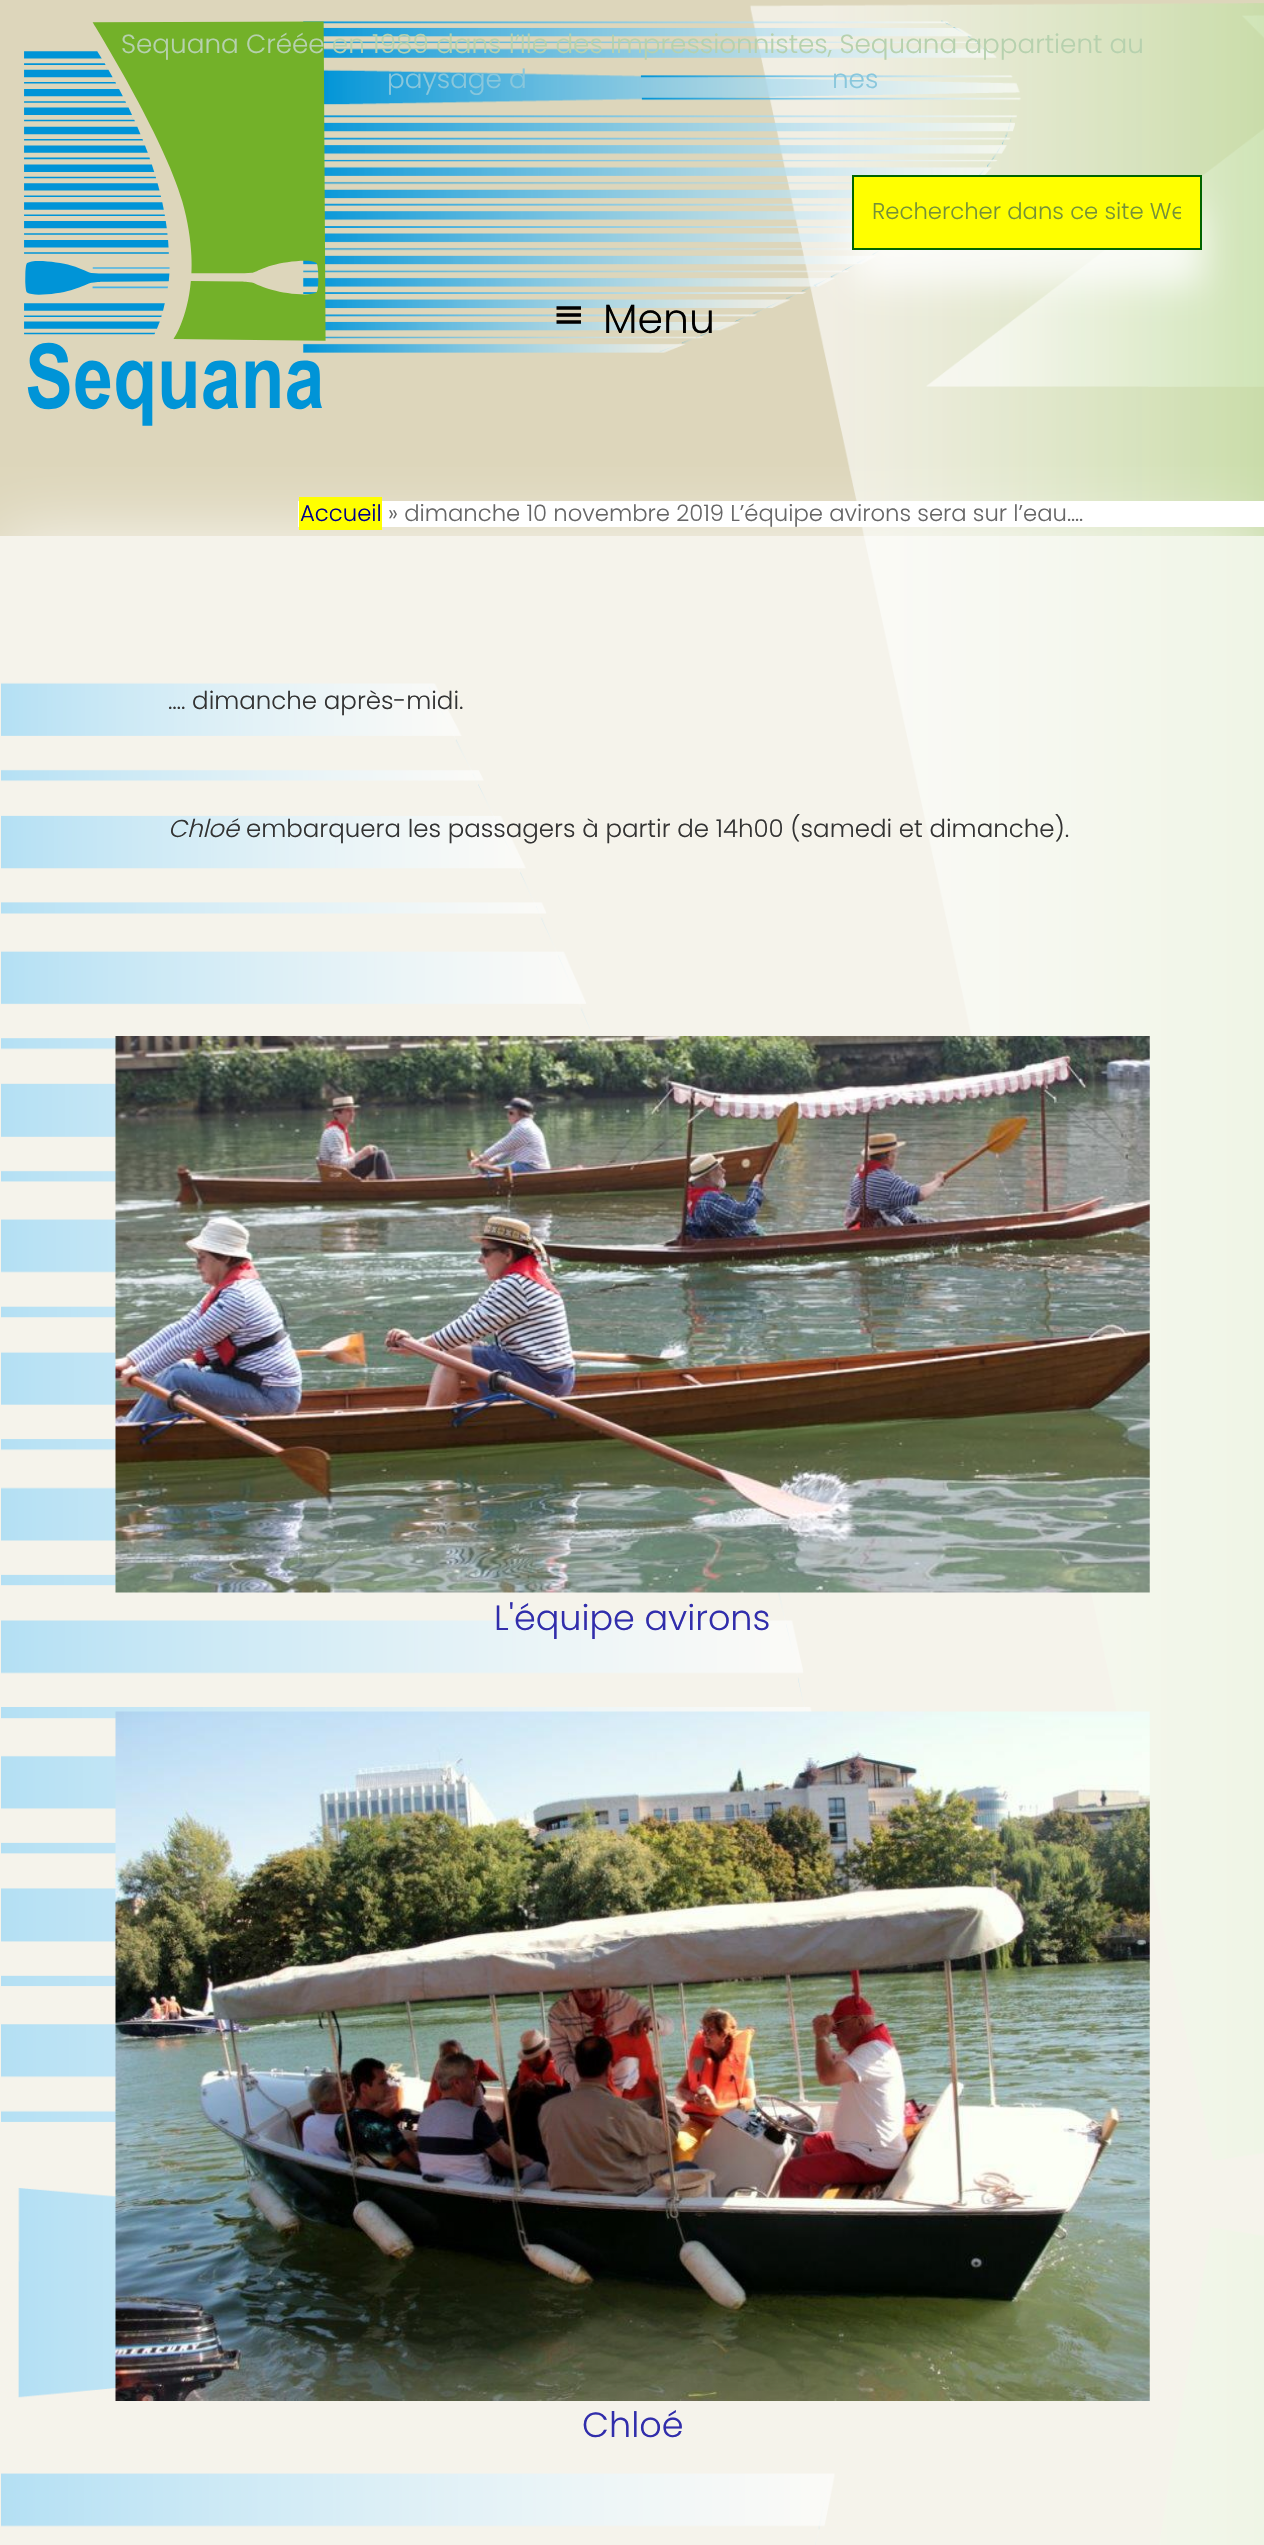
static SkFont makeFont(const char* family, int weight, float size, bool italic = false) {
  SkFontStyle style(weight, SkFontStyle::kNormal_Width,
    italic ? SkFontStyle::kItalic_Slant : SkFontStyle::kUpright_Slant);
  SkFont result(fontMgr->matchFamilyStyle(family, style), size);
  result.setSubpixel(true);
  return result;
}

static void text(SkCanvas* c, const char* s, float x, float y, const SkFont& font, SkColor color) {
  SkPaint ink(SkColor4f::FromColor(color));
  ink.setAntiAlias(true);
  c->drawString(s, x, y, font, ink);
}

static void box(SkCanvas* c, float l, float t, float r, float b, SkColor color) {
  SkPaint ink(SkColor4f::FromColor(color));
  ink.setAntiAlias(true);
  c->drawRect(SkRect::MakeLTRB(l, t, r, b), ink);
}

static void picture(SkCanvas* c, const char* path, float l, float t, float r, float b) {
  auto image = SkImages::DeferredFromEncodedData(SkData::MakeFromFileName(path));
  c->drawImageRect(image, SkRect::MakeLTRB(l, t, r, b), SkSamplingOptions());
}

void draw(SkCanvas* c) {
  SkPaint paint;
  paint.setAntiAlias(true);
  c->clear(0xffddd6bb);
  picture(c, "img_01.png", 1, 3, 1264, 2545);
  picture(c, "img_02.png", 24, 21, 326, 426);
  SkFont face1 = makeFont("Poppins", 300, 26.25f);
  text(c, "Sequana Créée en 1989 dans l’Ile des Impressionnistes, Sequana appartient au", 121, 53, face1, 0xffb6d1ae);
  text(c, "paysage d", 387, 88, face1, 0xff89c7dc);
  text(c, "nes", 832, 88, face1, 0xff89c7dc);
  paint.setColor(0xccffffff);
  paint.setMaskFilter(SkMaskFilter::MakeBlur(kNormal_SkBlurStyle, 17.5f));
  c->drawRect(SkRect::MakeLTRB(852, 210, 1202, 285), paint);
  paint.setMaskFilter(nullptr);
  paint.setColor(0xffffff00);
  c->drawRect(SkRect::MakeLTRB(853, 176, 1201, 249), paint);
  paint.setStyle(SkPaint::kStroke_Style);
  paint.setStrokeWidth(2);
  paint.setColor(0xff006400);
  c->drawRect(SkRect::MakeLTRB(853, 176, 1201, 249), paint);
  c->save();
  c->clipRect(SkRect::MakeLTRB(872, 194, 1181, 229));
  SkFont face2 = makeFont("Poppins", 300, 22.75f);
  text(c, "Rechercher dans ce site We", 872, 219, face2, 0xff759137);
  c->restore();
  picture(c, "img_03.png", 556, 306, 581, 324);
  SkFont face3 = makeFont("Poppins", 300, 41);
  text(c, "Menu", 603, 333, face3, 0xff000000);
  c->save();
  c->clipRect(SkRect::MakeLTRB(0, 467, 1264, 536));
  paint.setStyle(SkPaint::kFill_Style);
  paint.setColor(0xccffffff);
  paint.setMaskFilter(SkMaskFilter::MakeBlur(kNormal_SkBlurStyle, 35));
  c->drawRect(SkRect::MakeLTRB(0, 536, 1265, 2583), paint);
  paint.setMaskFilter(nullptr);
  c->restore();
  box(c, 0, 536, 1264, 2545, 0xb3ffffff);
  box(c, 298, 501, 1264, 527, 0xffffffff);
  box(c, 299, 497, 382, 530, 0xffffff00);
  text(c, "Accueil", 300, 521, face2, 0xff00008b);
  text(c, "» dimanche 10 novembre 2019 L’équipe avirons sera sur l’eau….", 388, 521, face2, 0xff666666);
  SkFont face4 = makeFont("Poppins", 300, 24.5f);
  text(c, "…. dimanche après-midi.", 168, 709, face4, 0xff333333);
  SkFont face5 = makeFont("Poppins", 300, 24.5f, true);
  text(c, "Chloé", 168, 837, face5, 0xff333333);
  text(c, "embarquera les passagers à partir de 14h00 (samedi et dimanche).", 246, 837, face4, 0xff333333);
  picture(c, "img_04.png", 115, 1036, 1150, 1593);
  SkFont face6 = makeFont("Poppins", 300, 35);
  text(c, "L'équipe avirons", 494, 1630, face6, 0xff312dab);
  picture(c, "img_05.png", 115, 1711, 1150, 2401);
  text(c, "Chloé", 582, 2437, face6, 0xff312dab);
}
